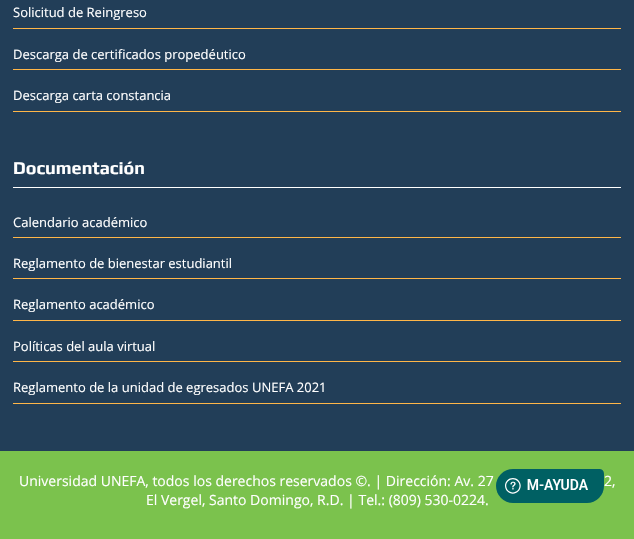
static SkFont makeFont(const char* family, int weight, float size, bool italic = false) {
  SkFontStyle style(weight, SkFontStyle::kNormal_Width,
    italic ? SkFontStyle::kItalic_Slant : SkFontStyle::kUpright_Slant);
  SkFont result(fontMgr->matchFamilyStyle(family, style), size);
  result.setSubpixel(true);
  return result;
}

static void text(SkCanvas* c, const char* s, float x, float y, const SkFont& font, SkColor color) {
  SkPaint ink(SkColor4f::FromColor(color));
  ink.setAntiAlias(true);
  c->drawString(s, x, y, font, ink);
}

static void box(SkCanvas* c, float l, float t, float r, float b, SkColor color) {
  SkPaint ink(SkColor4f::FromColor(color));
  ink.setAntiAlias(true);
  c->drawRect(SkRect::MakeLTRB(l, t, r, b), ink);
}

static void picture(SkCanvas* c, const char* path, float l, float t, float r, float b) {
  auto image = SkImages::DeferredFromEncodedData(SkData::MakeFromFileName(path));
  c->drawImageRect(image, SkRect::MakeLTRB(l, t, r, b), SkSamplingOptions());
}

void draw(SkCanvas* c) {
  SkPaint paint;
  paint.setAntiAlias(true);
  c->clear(0xff223e58);
  box(c, 13, 28, 621, 29, 0xffffb648);
  SkFont face1 = makeFont("Open Sans", 400, 13);
  text(c, "Solicitud de Reingreso", 13, 17, face1, 0xffffffff);
  box(c, 13, 69, 621, 70, 0xffffb648);
  text(c, "Descarga de certificados propedéutico", 13, 59, face1, 0xffffffff);
  box(c, 13, 111, 621, 112, 0xffffb648);
  text(c, "Descarga carta constancia", 13, 100, face1, 0xffffffff);
  box(c, 13, 187, 621, 188, 0xffffffff);
  SkFont face2 = makeFont("Play", 700, 18);
  text(c, "Documentación", 13, 174, face2, 0xffffffff);
  box(c, 13, 237, 621, 238, 0xffffb648);
  text(c, "Calendario académico", 13, 227, face1, 0xffffffff);
  box(c, 13, 278, 621, 279, 0xffffb648);
  text(c, "Reglamento de bienestar estudiantil", 13, 268, face1, 0xffffffff);
  box(c, 13, 320, 621, 321, 0xffffb648);
  text(c, "Reglamento académico", 13, 309, face1, 0xffffffff);
  box(c, 13, 361, 621, 362, 0xffffb648);
  text(c, "Políticas del aula virtual", 13, 351, face1, 0xffffffff);
  box(c, 13, 403, 621, 404, 0xffffb648);
  text(c, "Reglamento de la unidad de egresados UNEFA 2021", 13, 392, face1, 0xffffffff);
  box(c, 0, 451, 634, 539, 0xff7bc24d);
  SkFont face3 = makeFont("Open Sans", 400, 14);
  text(c, "Universidad UNEFA, todos los derechos reservados ©. | Dirección: Av. 27", 19, 486, face3, 0xffffffff);
  text(c, "2,", 604, 486, face3, 0xffffffff);
  text(c, "El Vergel, Santo Domingo, R.D. | Tel.: (809) 530-0224.", 146, 505, face3, 0xffffffff);
  picture(c, "img_01.png", 496, 469, 604, 503);
}
